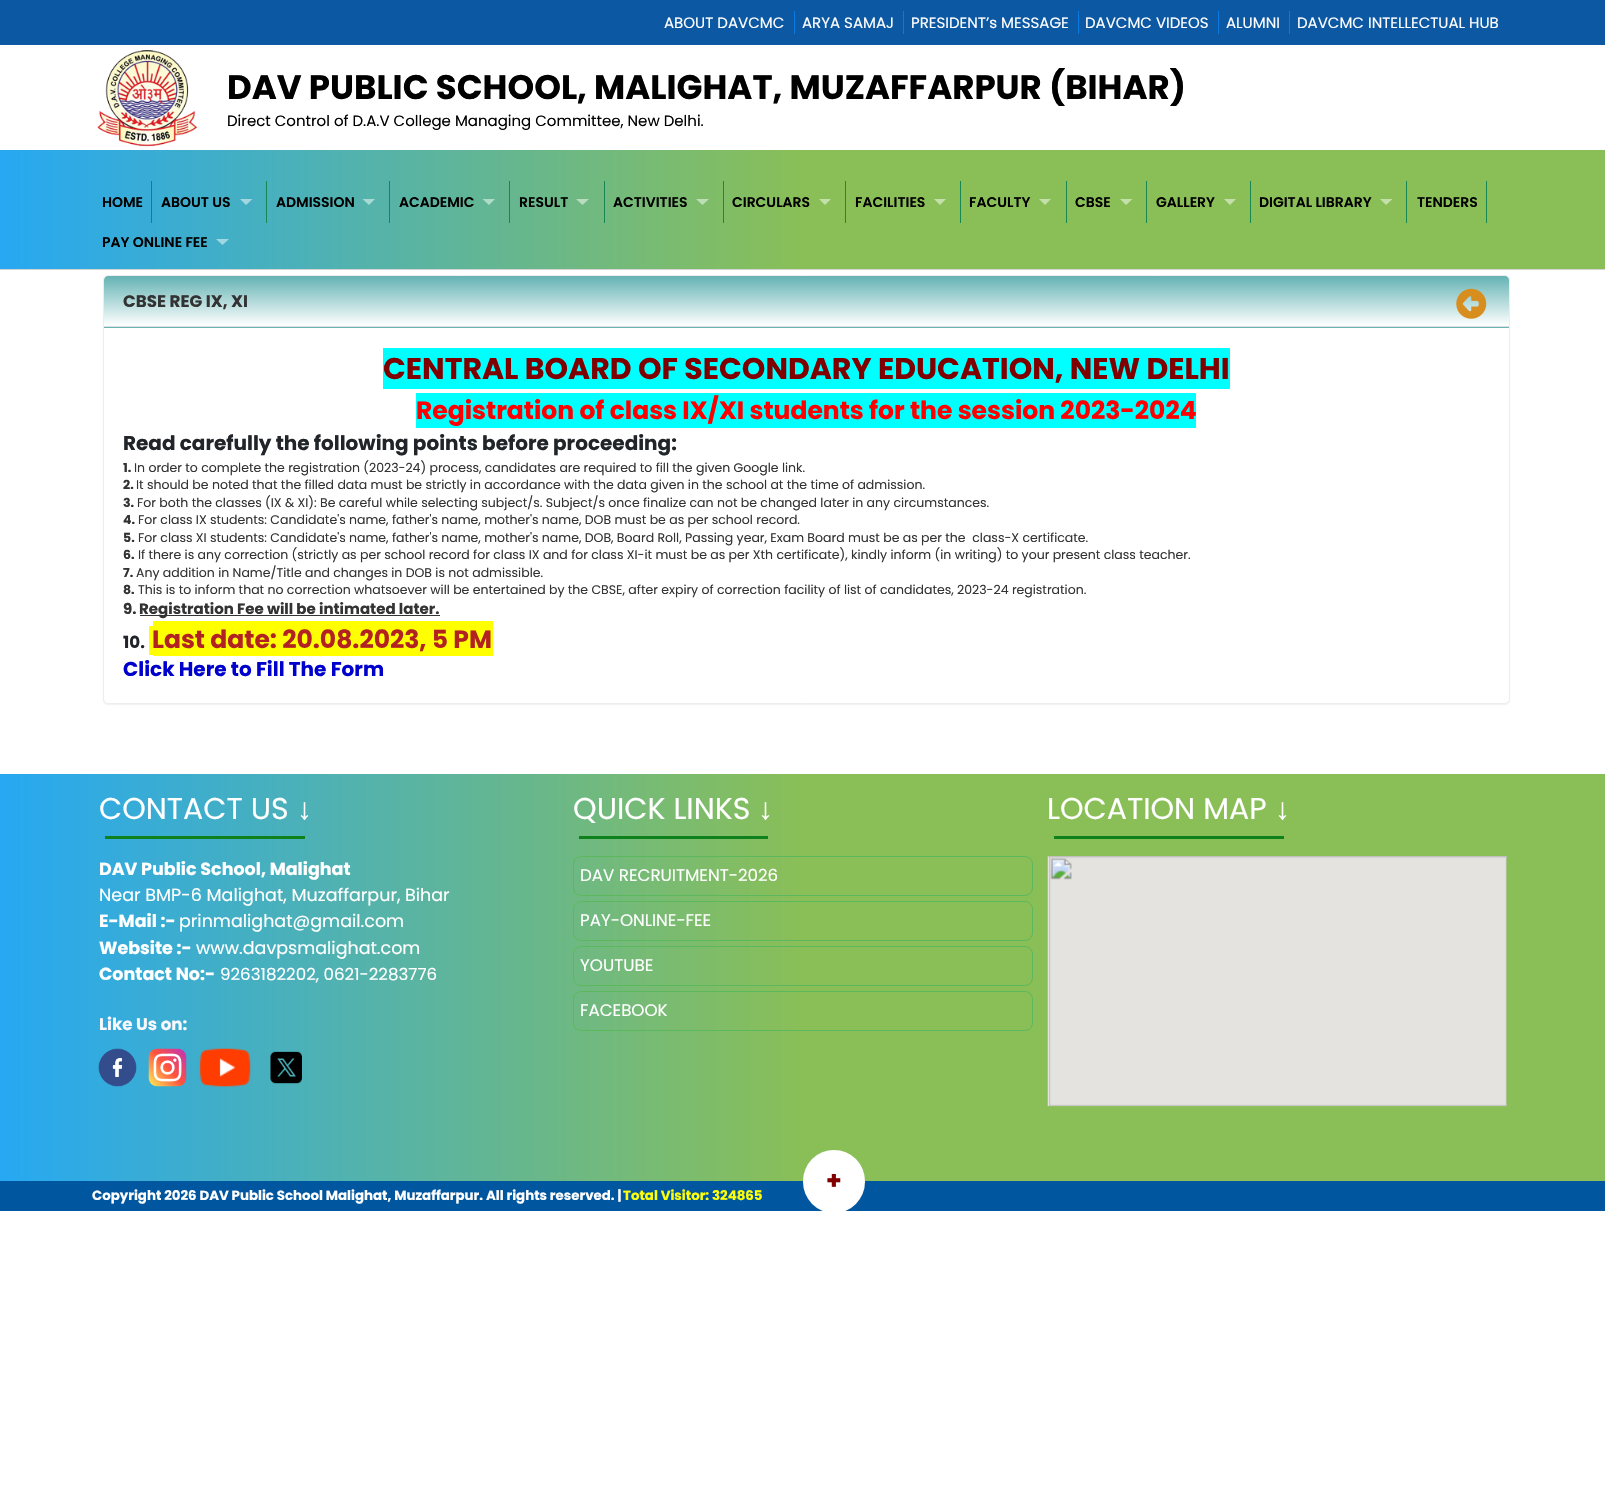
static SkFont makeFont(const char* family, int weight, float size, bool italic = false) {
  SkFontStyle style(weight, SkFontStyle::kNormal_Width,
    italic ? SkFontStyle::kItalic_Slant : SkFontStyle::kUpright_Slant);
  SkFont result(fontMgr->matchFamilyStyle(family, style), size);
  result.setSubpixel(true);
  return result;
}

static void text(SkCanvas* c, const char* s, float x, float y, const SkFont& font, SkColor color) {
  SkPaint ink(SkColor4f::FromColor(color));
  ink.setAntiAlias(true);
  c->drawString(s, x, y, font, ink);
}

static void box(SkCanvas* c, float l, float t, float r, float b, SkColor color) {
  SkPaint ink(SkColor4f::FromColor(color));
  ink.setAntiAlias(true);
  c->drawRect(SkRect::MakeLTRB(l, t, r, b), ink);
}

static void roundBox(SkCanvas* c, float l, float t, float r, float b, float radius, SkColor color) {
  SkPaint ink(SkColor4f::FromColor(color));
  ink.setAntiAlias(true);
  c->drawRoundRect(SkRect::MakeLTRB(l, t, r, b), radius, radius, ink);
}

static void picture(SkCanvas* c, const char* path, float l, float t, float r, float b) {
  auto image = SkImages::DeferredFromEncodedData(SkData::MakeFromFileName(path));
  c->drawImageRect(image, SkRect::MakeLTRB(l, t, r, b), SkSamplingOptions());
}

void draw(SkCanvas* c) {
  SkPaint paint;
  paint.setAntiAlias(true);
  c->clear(0xffffffff);
  box(c, 0, 0, 1605, 45, 0xff0c58a2);
  box(c, 794, 11, 795, 34, 0xff087ae1);
  SkFont face1 = makeFont("Poppins", 400, 15);
  text(c, "ABOUT DAVCMC", 664, 28, face1, 0xffffffff);
  box(c, 903, 11, 904, 34, 0xff087ae1);
  text(c, "ARYA SAMAJ", 802, 28, face1, 0xffffffff);
  box(c, 1078, 11, 1079, 34, 0xff087ae1);
  text(c, "PRESIDENT’s MESSAGE", 911, 28, face1, 0xffffffff);
  box(c, 1218, 11, 1219, 34, 0xff087ae1);
  text(c, "DAVCMC VIDEOS", 1085, 28, face1, 0xffffffff);
  box(c, 1289, 11, 1290, 34, 0xff087ae1);
  text(c, "ALUMNI", 1226, 28, face1, 0xffffffff);
  text(c, "DAVCMC INTELLECTUAL HUB", 1297, 28, face1, 0xffffffff);
  picture(c, "img_01.png", 97, 50, 198, 147);
  SkFont face2 = makeFont("Poppins", 700, 34);
  text(c, "DAV PUBLIC SCHOOL, MALIGHAT, MUZAFFARPUR (BIHAR)", 227, 99, face2, 0xff000000);
  text(c, "Direct Control of D.A.V College Managing Committee, New Delhi.", 227, 126, face1, 0xff000000);
  {
    const SkColor colors[] = {0xff26a8f2, 0xff8abf57};
    const float stops[] = {0, 0.5f};
    const SkPoint ends[] = {{0, 209}, {1605, 209}};
    paint.setShader(SkGradientShader::MakeLinear(ends, colors, stops, 2, SkTileMode::kClamp));
    paint.setAlpha(255);
  }
  c->drawRect(SkRect::MakeLTRB(0, 150, 1605, 269), paint);
  box(c, 0, 269, 1605, 270, 0xffd3d3d4);
  box(c, 151, 181, 152, 223, 0xff198754);
  SkFont face3 = makeFont("Poppins", 600, 14);
  text(c, "HOME", 102, 207, face3, 0xff000000);
  box(c, 266, 181, 267, 223, 0xff198754);
  text(c, "ABOUT US", 161, 207, face3, 0xff000000);
  paint.setShader(nullptr);
  paint.setColor(0xffa2d7e1);
  c->drawPath(SkPathBuilder().moveTo(240, 199).lineTo(252.5f, 199).lineTo(246, 205).close().detach(), paint);
  box(c, 389, 181, 390, 223, 0xff198754);
  text(c, "ADMISSION", 276, 207, face3, 0xff000000);
  paint.setColor(0xffa9d9d5);
  c->drawPath(SkPathBuilder().moveTo(362.5f, 199).lineTo(375, 199).lineTo(369, 205).close().detach(), paint);
  box(c, 509, 181, 510, 223, 0xff198754);
  text(c, "ACADEMIC", 399, 207, face3, 0xff000000);
  paint.setColor(0xffb1dbc9);
  c->drawPath(SkPathBuilder().moveTo(482.5f, 199).lineTo(495, 199).lineTo(489, 205).close().detach(), paint);
  box(c, 604, 181, 605, 223, 0xff198754);
  text(c, "RESULT", 519, 207, face3, 0xff000000);
  paint.setColor(0xffb7dcc0);
  c->drawPath(SkPathBuilder().moveTo(576, 199).lineTo(589, 199).lineTo(582.5f, 205).close().detach(), paint);
  box(c, 723, 181, 724, 223, 0xff198754);
  text(c, "ACTIVITIES", 613, 207, face3, 0xff000000);
  paint.setColor(0xffbedeb5);
  c->drawPath(SkPathBuilder().moveTo(696, 199).lineTo(709, 199).lineTo(702.5f, 205).close().detach(), paint);
  box(c, 845, 181, 846, 223, 0xff198754);
  text(c, "CIRCULARS", 732, 207, face3, 0xff000000);
  paint.setColor(0xffc5dfab);
  c->drawPath(SkPathBuilder().moveTo(819, 199).lineTo(831, 199).lineTo(825, 205).close().detach(), paint);
  box(c, 960, 181, 961, 223, 0xff198754);
  text(c, "FACILITIES", 855, 207, face3, 0xff000000);
  c->drawPath(SkPathBuilder().moveTo(934, 199).lineTo(946, 199).lineTo(940, 205).close().detach(), paint);
  box(c, 1066, 181, 1067, 223, 0xff198754);
  text(c, "FACULTY", 969, 207, face3, 0xff000000);
  c->drawPath(SkPathBuilder().moveTo(1039, 199).lineTo(1051, 199).lineTo(1045, 205).close().detach(), paint);
  box(c, 1146, 181, 1147, 223, 0xff198754);
  text(c, "CBSE", 1075, 207, face3, 0xff000000);
  c->drawPath(SkPathBuilder().moveTo(1120, 199).lineTo(1132.5f, 199).lineTo(1126, 205).close().detach(), paint);
  box(c, 1250, 181, 1251, 223, 0xff198754);
  text(c, "GALLERY", 1156, 207, face3, 0xff000000);
  c->drawPath(SkPathBuilder().moveTo(1224, 199).lineTo(1236, 199).lineTo(1230, 205).close().detach(), paint);
  box(c, 1406, 181, 1407, 223, 0xff198754);
  text(c, "DIGITAL LIBRARY", 1259, 207, face3, 0xff000000);
  c->drawPath(SkPathBuilder().moveTo(1380, 199).lineTo(1392.5f, 199).lineTo(1386, 205).close().detach(), paint);
  box(c, 1486, 181, 1487, 223, 0xff198754);
  text(c, "TENDERS", 1417, 207, face3, 0xff000000);
  text(c, "PAY ONLINE FEE", 102, 247, face3, 0xff000000);
  paint.setColor(0xffa0d7e3);
  c->drawPath(SkPathBuilder().moveTo(216, 239).lineTo(229, 239).lineTo(222.5f, 245).close().detach(), paint);
  paint.setColor(0x0d000000);
  paint.setMaskFilter(SkMaskFilter::MakeBlur(kNormal_SkBlurStyle, 0.5f));
  c->drawRoundRect(SkRect::MakeLTRB(103, 276, 1510, 705), 5, 5, paint);
  paint.setMaskFilter(nullptr);
  paint.setColor(0xffffffff);
  c->drawRoundRect(SkRect::MakeLTRB(103.5f, 275.5f, 1509.5f, 703.5f), 4.5f, 4.5f, paint);
  paint.setStyle(SkPaint::kStroke_Style);
  paint.setStrokeWidth(1);
  paint.setColor(0xffeeeeee);
  c->drawRoundRect(SkRect::MakeLTRB(103.5f, 275.5f, 1509.5f, 703.5f), 4.5f, 4.5f, paint);
  paint.setStyle(SkPaint::kFill_Style);
  {
    const SkColor colors[] = {0xff64b3b4, 0xffffffff};
    const float stops[] = {0, 1};
    const SkPoint ends[] = {{806, 276}, {806, 326}};
    paint.setShader(SkGradientShader::MakeLinear(ends, colors, stops, 2, SkTileMode::kClamp));
    paint.setAlpha(255);
  }
  c->drawPath(SkPathBuilder().moveTo(108, 276).lineTo(1505, 276).cubicTo(1507, 276, 1509, 278, 1509, 280).lineTo(1509, 326).lineTo(104, 326).lineTo(104, 280).cubicTo(104, 278, 106, 276, 108, 276).close().detach(), paint);
  {
    const SkColor colors[] = {0xff64b3b4, 0xffffffff};
    const float stops[] = {0, 1};
    const SkPoint ends[] = {{806, 326}, {806, 376}};
    paint.setShader(SkGradientShader::MakeLinear(ends, colors, stops, 2, SkTileMode::kClamp));
    paint.setAlpha(255);
  }
  c->drawRect(SkRect::MakeLTRB(104, 327, 1509, 328), paint);
  box(c, 104, 326, 1509, 327, 0xffdddddd);
  SkFont face4 = makeFont("Poppins", 700, 16.7f);
  text(c, "CBSE REG IX, XI", 123, 307, face4, 0xff333333);
  picture(c, "img_02.png", 1456, 288, 1487, 319);
  box(c, 383, 348, 1230, 389, 0xff00ffff);
  SkFont face5 = makeFont("Poppins", 700, 30);
  text(c, "CENTRAL BOARD OF SECONDARY EDUCATION, NEW DELHI", 383, 379, face5, 0xff800000);
  box(c, 416, 393, 1196, 428, 0xff00ffff);
  SkFont face6 = makeFont("Poppins", 700, 25);
  text(c, "Registration of class IX/XI students for the session 2023-2024", 416, 419, face6, 0xffff0000);
  SkFont face7 = makeFont("Poppins", 700, 20);
  text(c, "Read carefully the following points before proceeding:", 123, 450, face7, 0xff212529);
  SkFont face8 = makeFont("Poppins", 700, 12.5f);
  text(c, "1.", 123, 472, face8, 0xff333333);
  SkFont face9 = makeFont("Poppins", 400, 12.5f);
  text(c, "In order to complete the registration (2023-24) process, candidates are required to fill the given Google link.", 134, 472, face9, 0xff333333);
  text(c, "2.", 123, 489, face8, 0xff333333);
  text(c, "It should be noted that the filled data must be strictly in accordance with the data given in the school at the time of admission.", 136, 489, face9, 0xff333333);
  text(c, "3.", 123, 507, face8, 0xff333333);
  text(c, "For both the classes (IX & XI): Be careful while selecting subject/s. Subject/s once finalize can not be changed later in any circumstances.", 137, 507, face9, 0xff333333);
  text(c, "4.", 123, 524, face8, 0xff333333);
  text(c, "For class IX students: Candidate's name, father's name, mother's name, DOB must be as per school record.", 138, 524, face9, 0xff333333);
  text(c, "5.", 123, 542, face8, 0xff333333);
  text(c, "For class XI students: Candidate's name, father's name, mother's name, DOB, Board Roll, Passing year, Exam Board must be as per the  class-X certificate.", 138, 542, face9, 0xff333333);
  text(c, "6.", 123, 559, face8, 0xff333333);
  text(c, "If there is any correction (strictly as per school record for class IX and for class XI-it must be as per Xth certificate), kindly inform (in writing) to your present class teacher.", 138, 559, face9, 0xff333333);
  text(c, "7.", 123, 577, face8, 0xff333333);
  text(c, "Any addition in Name/Title and changes in DOB is not admissible.", 136, 577, face9, 0xff333333);
  text(c, "8.", 123, 594, face8, 0xff333333);
  text(c, "This is to inform that no correction whatsoever will be entertained by the CBSE, after expiry of correction facility of list of candidates, 2023-24 registration.", 138, 594, face9, 0xff333333);
  SkFont face10 = makeFont("Poppins", 700, 15);
  text(c, "9.", 123, 614, face10, 0xff333333);
  box(c, 140, 615, 440, 616, 0xff333333);
  text(c, "Registration Fee will be intimated later.", 139, 614, face10, 0xff333333);
  text(c, "10.", 123, 648, face4, 0xff212529);
  box(c, 153, 621, 493, 656, 0xffffff00);
  text(c, "Last date: 20.08.2023, 5 PM", 152, 648, face6, 0xffb22222);
  box(c, 149, 626, 153, 655, 0xffffff00);
  text(c, "Click Here to Fill The Form", 123, 676, face7, 0xff0000cd);
  {
    const SkColor colors[] = {0xff26a8f2, 0xff8abf57};
    const float stops[] = {0, 0.5f};
    const SkPoint ends[] = {{0, 978}, {1605, 978}};
    paint.setShader(SkGradientShader::MakeLinear(ends, colors, stops, 2, SkTileMode::kClamp));
    paint.setAlpha(255);
  }
  c->drawRect(SkRect::MakeLTRB(0, 774, 1605, 1181), paint);
  SkFont face11 = makeFont("Poppins", 400, 30);
  text(c, "CONTACT US", 99, 819, face11, 0xffffffff);
  SkFont face12 = makeFont("Liberation Sans", 400, 30);
  text(c, "↓", 297, 819, face12, 0xffffffff);
  box(c, 105, 836, 305, 839, 0xff0e801c);
  SkFont face13 = makeFont("Poppins", 700, 17.5f);
  text(c, "DAV Public School, Malighat", 99, 875, face13, 0xffffffff);
  SkFont face14 = makeFont("Poppins", 400, 17.5f);
  text(c, "Near BMP-6 Malighat, Muzaffarpur, Bihar", 99, 901, face14, 0xffffffff);
  text(c, "E-Mail :-", 99, 927, face13, 0xffffffff);
  text(c, "prinmalighat@gmail.com", 179, 927, face14, 0xffffffff);
  text(c, "Website :-", 99, 954, face13, 0xffffffff);
  text(c, "www.davpsmalighat.com", 196, 954, face14, 0xffffffff);
  text(c, "Contact No:-", 99, 980, face13, 0xffffffff);
  SkFont face15 = makeFont("Poppins", 400, 16.7f);
  text(c, "9263182202, 0621-2283776", 220, 980, face15, 0xffffffff);
  text(c, "Like Us on:", 99, 1030, face4, 0xfff8f8ff);
  picture(c, "img_03.png", 98, 1048, 137, 1087);
  picture(c, "img_04.png", 148, 1048, 187, 1087);
  picture(c, "img_05.png", 199, 1048, 252, 1087);
  picture(c, "img_06.png", 270, 1051, 302, 1084);
  text(c, "QUICK LINKS", 573, 819, face11, 0xffffffff);
  text(c, "↓", 758, 819, face12, 0xffffffff);
  box(c, 579, 836, 768, 839, 0xff0e801c);
  paint.setStyle(SkPaint::kStroke_Style);
  paint.setShader(nullptr);
  paint.setColor(0xff5cb85c);
  c->drawRoundRect(SkRect::MakeLTRB(573.5f, 856.5f, 1032.5f, 895.5f), 7.5f, 7.5f, paint);
  text(c, "DAV RECRUITMENT-2026", 580, 881, face15, 0xffffffff);
  c->drawRoundRect(SkRect::MakeLTRB(573.5f, 901.5f, 1032.5f, 940.5f), 7.5f, 7.5f, paint);
  text(c, "PAY-ONLINE-FEE", 580, 926, face15, 0xffffffff);
  c->drawRoundRect(SkRect::MakeLTRB(573.5f, 946.5f, 1032.5f, 985.5f), 7.5f, 7.5f, paint);
  text(c, "YOUTUBE", 580, 971, face15, 0xffffffff);
  c->drawRoundRect(SkRect::MakeLTRB(573.5f, 991.5f, 1032.5f, 1030.5f), 7.5f, 7.5f, paint);
  text(c, "FACEBOOK", 580, 1016, face15, 0xffffffff);
  text(c, "LOCATION MAP", 1047, 819, face11, 0xffffffff);
  text(c, "↓", 1275, 819, face12, 0xffffffff);
  box(c, 1054, 836, 1284, 839, 0xff0e801c);
  picture(c, "img_07.png", 1047, 856, 1507, 1107);
  box(c, 0, 1181, 1605, 1211, 0xff00579f);
  roundBox(c, 803, 1150, 865, 1213, 31, 0xffffffff);
  text(c, "+", 826, 1189, face6, 0xff800000);
  SkFont face16 = makeFont("Poppins", 700, 13.35f);
  text(c, "Copyright 2026 DAV Public School Malighat, Muzaffarpur. All rights reserved. |", 92, 1200, face16, 0xffffffff);
  text(c, "Total Visitor: 324865", 623, 1200, face16, 0xffffff09);
}
